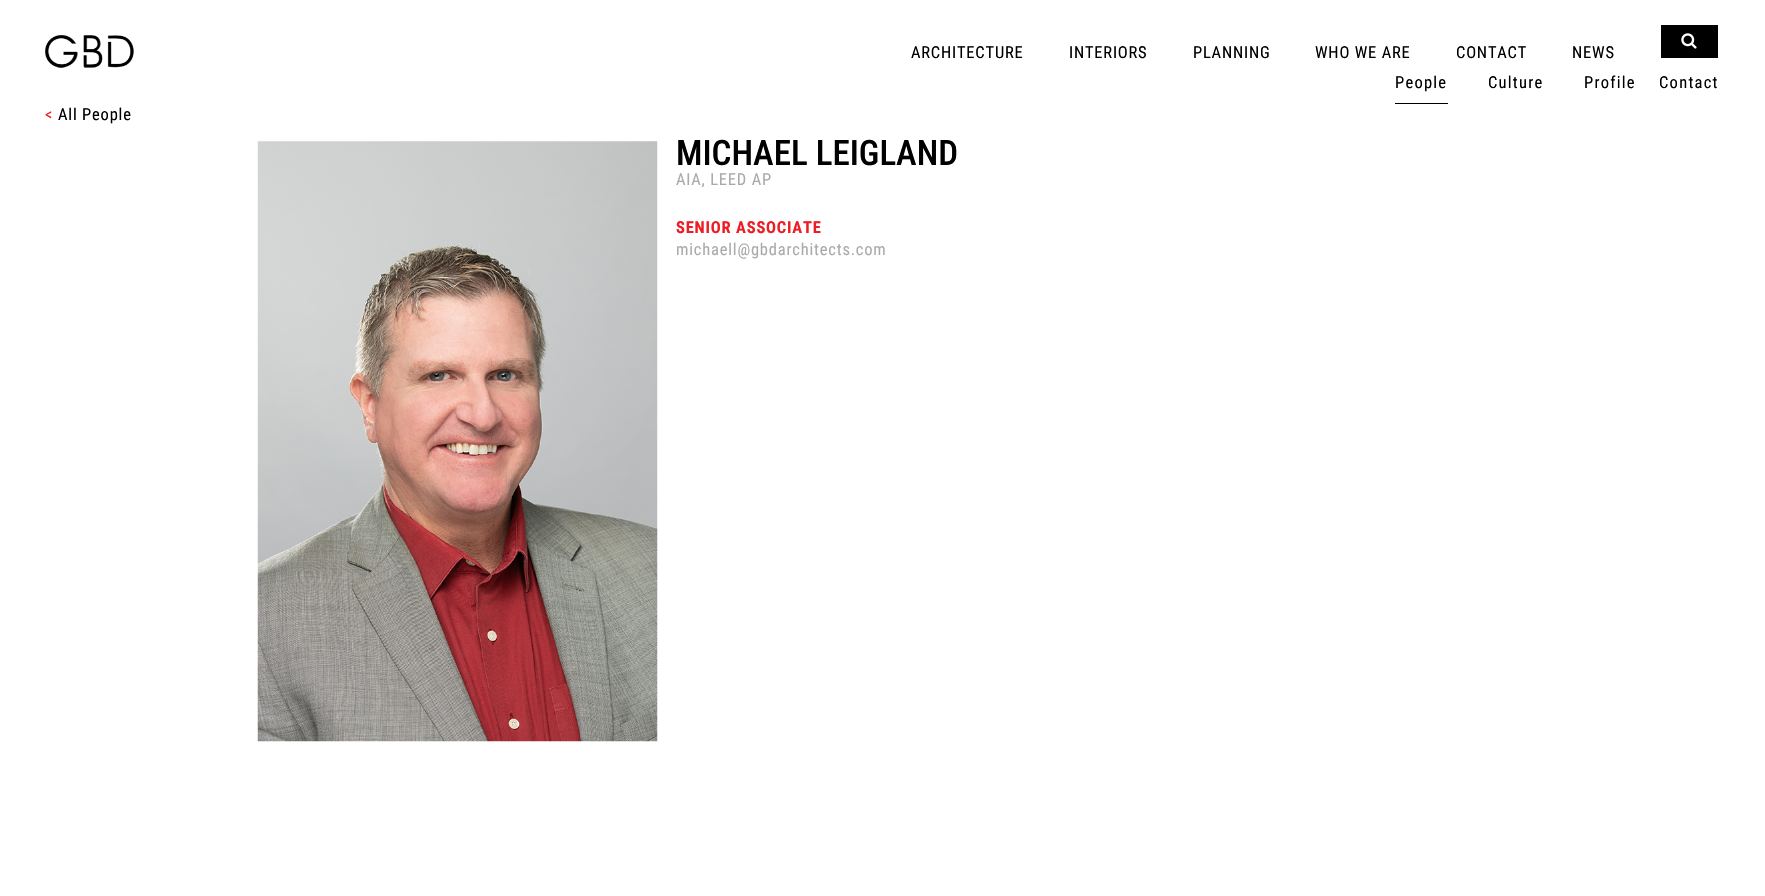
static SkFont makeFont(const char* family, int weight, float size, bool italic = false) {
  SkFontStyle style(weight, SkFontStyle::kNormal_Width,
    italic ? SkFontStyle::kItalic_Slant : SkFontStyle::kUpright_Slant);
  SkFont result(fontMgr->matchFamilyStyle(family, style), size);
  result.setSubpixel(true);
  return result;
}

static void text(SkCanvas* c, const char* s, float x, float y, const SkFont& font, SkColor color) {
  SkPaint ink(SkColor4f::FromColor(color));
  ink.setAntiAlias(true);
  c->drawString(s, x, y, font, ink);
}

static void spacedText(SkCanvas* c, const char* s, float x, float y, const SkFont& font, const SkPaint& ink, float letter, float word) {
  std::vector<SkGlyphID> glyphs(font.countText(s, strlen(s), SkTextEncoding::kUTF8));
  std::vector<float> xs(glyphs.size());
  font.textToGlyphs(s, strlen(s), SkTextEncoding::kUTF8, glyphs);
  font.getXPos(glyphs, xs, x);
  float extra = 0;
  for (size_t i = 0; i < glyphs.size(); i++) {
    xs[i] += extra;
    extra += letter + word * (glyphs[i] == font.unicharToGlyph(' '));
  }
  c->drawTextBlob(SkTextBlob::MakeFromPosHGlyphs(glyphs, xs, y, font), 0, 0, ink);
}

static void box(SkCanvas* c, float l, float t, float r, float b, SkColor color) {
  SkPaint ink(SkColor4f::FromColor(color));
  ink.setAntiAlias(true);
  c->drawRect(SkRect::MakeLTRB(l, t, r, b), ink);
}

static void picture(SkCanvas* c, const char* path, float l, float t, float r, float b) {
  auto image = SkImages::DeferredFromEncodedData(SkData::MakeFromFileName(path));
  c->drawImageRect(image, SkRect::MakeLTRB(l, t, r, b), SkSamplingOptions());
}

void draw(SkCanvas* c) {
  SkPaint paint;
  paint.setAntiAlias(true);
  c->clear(0xffffffff);
  picture(c, "img_01.png", 45, 35, 134, 68);
  SkFont face1 = makeFont("Roboto Condensed", 400, 16.5f);
  paint.setColor(0xff000000);
  spacedText(c, "ARCHITECTURE", 911, 58, face1, paint, 0.8f, 0);
  spacedText(c, "INTERIORS", 1069, 58, face1, paint, 0.8f, 0);
  spacedText(c, "PLANNING", 1193, 58, face1, paint, 0.8f, 0);
  spacedText(c, "WHO WE ARE", 1315, 58, face1, paint, 0.8f, 0);
  spacedText(c, "CONTACT", 1456, 58, face1, paint, 0.8f, 0);
  spacedText(c, "NEWS", 1572, 58, face1, paint, 0.8f, 0);
  box(c, 1661, 25, 1718, 58, 0xff000000);
  picture(c, "img_02.png", 1681, 33, 1697, 49);
  spacedText(c, "People", 1395, 88, face1, paint, 1.25f, 0);
  box(c, 1395, 103, 1448, 104, 0xff000000);
  spacedText(c, "Culture", 1488, 88, face1, paint, 1.25f, 0);
  spacedText(c, "Profile", 1584, 88, face1, paint, 1.25f, 0);
  spacedText(c, "Contact", 1659, 88, face1, paint, 1.25f, 0);
  paint.setColor(0xffee1c24);
  spacedText(c, "<", 45, 120, face1, paint, 0.8f, 0);
  paint.setColor(0xff000000);
  spacedText(c, "All People", 58, 120, face1, paint, 0.8f, 0);
  picture(c, "img_03.png", 257, 141, 658, 742);
  SkFont face2 = makeFont("Roboto Condensed", 500, 35);
  text(c, "MICHAEL LEIGLAND", 676, 165, face2, 0xff000000);
  paint.setColor(0xffaaaaaa);
  spacedText(c, "AIA, LEED AP", 676, 185, face1, paint, 0.8f, 0);
  SkFont face3 = makeFont("Roboto Condensed", 700, 16.5f);
  paint.setColor(0xffee1c24);
  spacedText(c, "SENIOR ASSOCIATE", 676, 233, face3, paint, 0.8f, 0);
  paint.setColor(0xffaaaaaa);
  spacedText(c, "michaell@gbdarchitects.com", 676, 255, face1, paint, 0.8f, 0);
}
